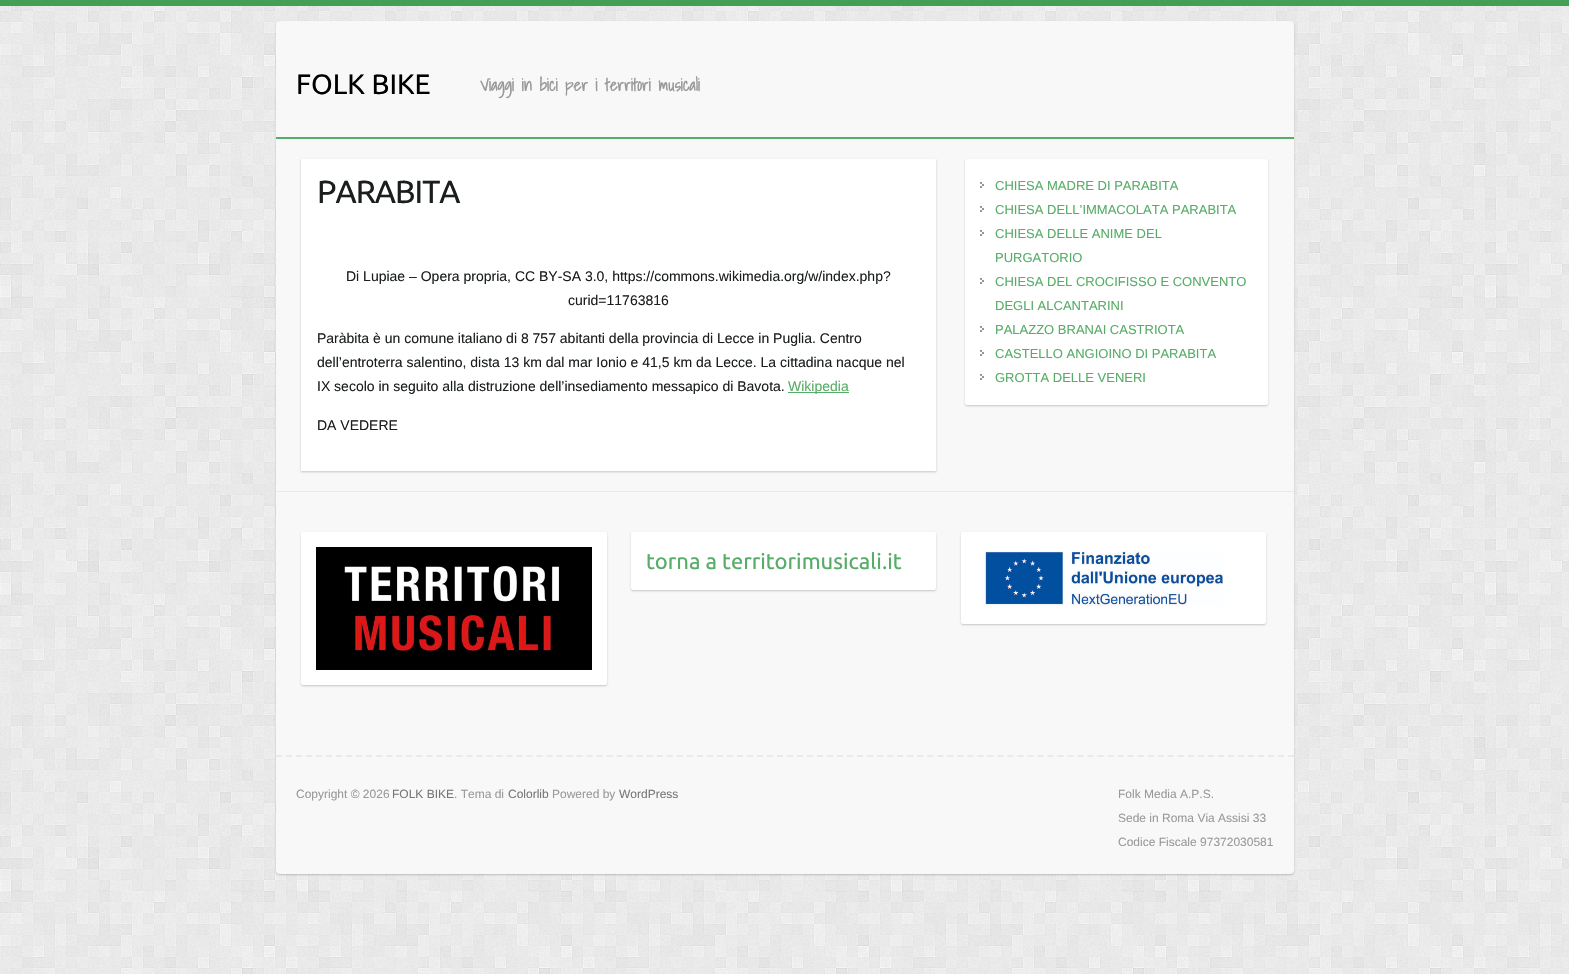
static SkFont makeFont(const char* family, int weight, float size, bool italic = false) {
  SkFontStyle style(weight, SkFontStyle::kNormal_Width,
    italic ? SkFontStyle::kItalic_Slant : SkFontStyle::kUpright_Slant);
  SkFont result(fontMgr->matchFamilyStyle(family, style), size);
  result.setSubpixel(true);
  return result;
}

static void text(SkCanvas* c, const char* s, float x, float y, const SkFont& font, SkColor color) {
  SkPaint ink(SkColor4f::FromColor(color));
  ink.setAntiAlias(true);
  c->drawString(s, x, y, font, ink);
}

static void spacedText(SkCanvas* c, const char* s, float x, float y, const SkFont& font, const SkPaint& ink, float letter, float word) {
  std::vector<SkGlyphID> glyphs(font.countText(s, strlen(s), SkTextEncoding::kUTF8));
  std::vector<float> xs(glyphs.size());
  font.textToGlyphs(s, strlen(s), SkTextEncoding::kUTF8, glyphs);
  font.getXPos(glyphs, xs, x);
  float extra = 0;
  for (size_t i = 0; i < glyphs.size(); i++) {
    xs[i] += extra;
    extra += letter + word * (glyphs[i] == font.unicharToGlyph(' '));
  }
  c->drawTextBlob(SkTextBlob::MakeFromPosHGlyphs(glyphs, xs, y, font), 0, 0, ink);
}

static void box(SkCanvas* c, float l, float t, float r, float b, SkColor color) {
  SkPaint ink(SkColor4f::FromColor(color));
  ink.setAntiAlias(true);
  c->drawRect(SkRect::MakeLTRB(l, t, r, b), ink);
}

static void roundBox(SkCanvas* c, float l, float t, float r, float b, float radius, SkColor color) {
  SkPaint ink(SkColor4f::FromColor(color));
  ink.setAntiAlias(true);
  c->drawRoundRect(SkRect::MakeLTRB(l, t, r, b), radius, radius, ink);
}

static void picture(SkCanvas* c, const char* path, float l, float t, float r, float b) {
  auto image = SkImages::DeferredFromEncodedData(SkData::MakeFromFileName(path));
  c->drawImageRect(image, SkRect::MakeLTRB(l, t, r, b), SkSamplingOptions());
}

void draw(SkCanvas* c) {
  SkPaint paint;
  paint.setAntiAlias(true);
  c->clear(0xffffffff);
  picture(c, "img_01.png", 0, 6, 1569, 974);
  box(c, 0, 0, 1569, 6, 0xff439f55);
  paint.setColor(0x33000000);
  paint.setMaskFilter(SkMaskFilter::MakeBlur(kNormal_SkBlurStyle, 1));
  c->drawRoundRect(SkRect::MakeLTRB(276, 22, 1294, 875), 4, 4, paint);
  paint.setMaskFilter(nullptr);
  roundBox(c, 276, 21, 1294, 874, 4, 0xfff8f8f8);
  SkFont face1 = makeFont("Ubuntu", 400, 28);
  text(c, "FOLK BIKE", 296, 94, face1, 0xff000000);
  SkFont face2 = makeFont("Shadows Into Light", 700, 16.75f);
  text(c, "Viaggi in bici per i territori musicali", 480, 91, face2, 0xff999999);
  box(c, 276, 137, 1294, 139, 0xff57ad68);
  paint.setMaskFilter(SkMaskFilter::MakeBlur(kNormal_SkBlurStyle, 1));
  c->drawRect(SkRect::MakeLTRB(301, 160, 936, 472), paint);
  paint.setMaskFilter(nullptr);
  box(c, 301, 159, 936, 471, 0xffffffff);
  SkFont face3 = makeFont("Ubuntu", 400, 32);
  paint.setColor(0xff1b1e1f);
  spacedText(c, "PARABITA", 317, 203, face3, paint, -1, 0);
  SkFont face4 = makeFont("Liberation Sans", 400, 14);
  text(c, "Di Lupiae – Opera propria, CC BY-SA 3.0, https://commons.wikimedia.org/w/index.php?", 346, 281, face4, 0xff1b1e1f);
  text(c, "curid=11763816", 568, 305, face4, 0xff1b1e1f);
  text(c, "Paràbita è un comune italiano di 8 757 abitanti della provincia di Lecce in Puglia. Centro", 317, 343, face4, 0xff1b1e1f);
  text(c, "dell’entroterra salentino, dista 13 km dal mar Ionio e 41,5 km da Lecce. La cittadina nacque nel", 317, 367, face4, 0xff1b1e1f);
  text(c, "IX secolo in seguito alla distruzione dell’insediamento messapico di Bavota.", 317, 391, face4, 0xff1b1e1f);
  box(c, 788, 392, 849, 393, 0xff57ad68);
  text(c, "Wikipedia", 788, 391, face4, 0xff57ad68);
  text(c, "DA VEDERE", 317, 430, face4, 0xff1b1e1f);
  paint.setColor(0x33000000);
  paint.setMaskFilter(SkMaskFilter::MakeBlur(kNormal_SkBlurStyle, 1));
  c->drawRoundRect(SkRect::MakeLTRB(965, 160, 1268, 406), 2, 2, paint);
  paint.setMaskFilter(nullptr);
  roundBox(c, 965, 159, 1268, 405, 2, 0xffffffff);
  picture(c, "img_02.png", 980, 182, 984, 188);
  SkFont face5 = makeFont("Liberation Sans", 400, 13);
  text(c, "CHIESA MADRE DI PARABITA", 995, 190, face5, 0xff57ad68);
  picture(c, "img_02.png", 980, 206, 984, 212);
  text(c, "CHIESA DELL’IMMACOLATA PARABITA", 995, 214, face5, 0xff57ad68);
  picture(c, "img_02.png", 980, 230, 984, 236);
  text(c, "CHIESA DELLE ANIME DEL", 995, 238, face5, 0xff57ad68);
  text(c, "PURGATORIO", 995, 262, face5, 0xff57ad68);
  picture(c, "img_02.png", 980, 278, 984, 284);
  text(c, "CHIESA DEL CROCIFISSO E CONVENTO", 995, 286, face5, 0xff57ad68);
  text(c, "DEGLI ALCANTARINI", 995, 310, face5, 0xff57ad68);
  picture(c, "img_02.png", 980, 326, 984, 332);
  text(c, "PALAZZO BRANAI CASTRIOTA", 995, 334, face5, 0xff57ad68);
  picture(c, "img_02.png", 980, 350, 984, 356);
  text(c, "CASTELLO ANGIOINO DI PARABITA", 995, 358, face5, 0xff57ad68);
  picture(c, "img_02.png", 980, 374, 984, 380);
  text(c, "GROTTA DELLE VENERI", 995, 382, face5, 0xff57ad68);
  box(c, 276, 491, 1294, 492, 0xffeaeaea);
  paint.setMaskFilter(SkMaskFilter::MakeBlur(kNormal_SkBlurStyle, 1));
  c->drawRoundRect(SkRect::MakeLTRB(301, 533, 607, 686), 2, 2, paint);
  paint.setMaskFilter(nullptr);
  roundBox(c, 301, 532, 607, 685, 2, 0xffffffff);
  picture(c, "img_03.png", 316, 547, 592, 670);
  paint.setMaskFilter(SkMaskFilter::MakeBlur(kNormal_SkBlurStyle, 1));
  c->drawRoundRect(SkRect::MakeLTRB(631, 533, 936, 591), 2, 2, paint);
  paint.setMaskFilter(nullptr);
  roundBox(c, 631, 532, 936, 590, 2, 0xffffffff);
  SkFont face6 = makeFont("Ubuntu", 400, 22);
  text(c, "torna a territorimusicali.it", 646, 569, face6, 0xff57ad68);
  paint.setMaskFilter(SkMaskFilter::MakeBlur(kNormal_SkBlurStyle, 1));
  c->drawRoundRect(SkRect::MakeLTRB(961, 533, 1266, 625), 2, 2, paint);
  paint.setMaskFilter(nullptr);
  roundBox(c, 961, 532, 1266, 624, 2, 0xffffffff);
  picture(c, "img_04.png", 984, 551, 1223, 606);
  paint.setStyle(SkPaint::kStroke_Style);
  paint.setStrokeWidth(2);
  paint.setColor(0xffeaeaea);
  paint.setPathEffect(SkDashPathEffect::Make({{6, 4.02f}}, 0));
  c->drawPath(SkPathBuilder().moveTo(276, 756).lineTo(1294, 756).detach(), paint);
  paint.setPathEffect(nullptr);
  SkFont face7 = makeFont("Liberation Sans", 400, 12);
  text(c, "Copyright © 2026", 296, 798, face7, 0xff999999);
  text(c, "FOLK BIKE", 392, 798, face7, 0xff777777);
  text(c, ". Tema di", 454, 798, face7, 0xff999999);
  text(c, "Colorlib", 508, 798, face7, 0xff777777);
  text(c, "Powered by", 552, 798, face7, 0xff999999);
  text(c, "WordPress", 619, 798, face7, 0xff777777);
  text(c, "Folk Media A.P.S.", 1118, 798, face7, 0xff999999);
  text(c, "Sede in Roma Via Assisi 33", 1118, 822, face7, 0xff999999);
  text(c, "Codice Fiscale 97372030581", 1118, 846, face7, 0xff999999);
}
